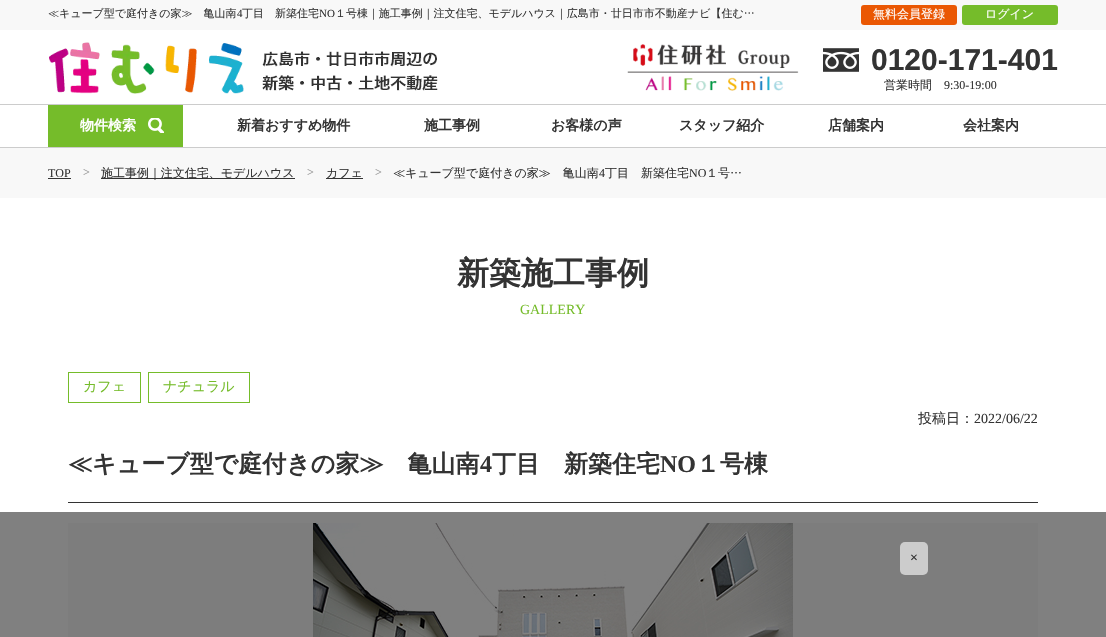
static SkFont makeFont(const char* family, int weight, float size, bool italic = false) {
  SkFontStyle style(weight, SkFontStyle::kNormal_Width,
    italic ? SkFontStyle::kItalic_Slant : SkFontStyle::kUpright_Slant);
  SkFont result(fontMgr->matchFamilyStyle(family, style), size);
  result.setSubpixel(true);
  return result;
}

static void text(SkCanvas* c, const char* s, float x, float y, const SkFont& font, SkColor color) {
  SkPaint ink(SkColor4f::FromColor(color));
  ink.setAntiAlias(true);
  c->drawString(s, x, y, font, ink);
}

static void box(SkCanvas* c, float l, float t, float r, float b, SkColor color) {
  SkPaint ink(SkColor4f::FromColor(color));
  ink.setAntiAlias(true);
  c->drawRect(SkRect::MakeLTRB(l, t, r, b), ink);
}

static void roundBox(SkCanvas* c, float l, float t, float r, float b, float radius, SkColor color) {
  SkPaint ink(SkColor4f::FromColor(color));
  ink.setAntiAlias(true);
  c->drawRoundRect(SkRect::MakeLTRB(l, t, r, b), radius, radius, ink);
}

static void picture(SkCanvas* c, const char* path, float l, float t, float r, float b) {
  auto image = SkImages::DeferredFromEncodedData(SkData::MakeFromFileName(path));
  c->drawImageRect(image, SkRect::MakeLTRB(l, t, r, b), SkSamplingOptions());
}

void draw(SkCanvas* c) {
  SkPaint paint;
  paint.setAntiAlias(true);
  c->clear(0xffffffff);
  box(c, 0, 512, 1106, 637, 0xff808080);
  box(c, 0, 0, 1106, 30, 0xfff8f8f8);
  SkFont face1 = makeFont("WenQuanYi Zen Hei", 500, 11);
  text(c, "≪キューブ型で庭付きの家≫　亀山南", 48, 17, face1, 0xff333333);
  SkFont face2 = makeFont("Liberation Serif", 400, 11);
  text(c, "4", 237, 17, face2, 0xff333333);
  text(c, "丁目　新築住宅", 242, 17, face1, 0xff333333);
  text(c, "NO", 319, 17, face2, 0xff333333);
  text(c, "１号棟｜施工事例｜注文住宅、モデルハウス｜広島市・廿日市市不動産ナビ【住む…", 335, 17, face1, 0xff333333);
  roundBox(c, 861, 5, 957, 25, 3, 0xffea5703);
  SkFont face3 = makeFont("WenQuanYi Zen Hei", 500, 12);
  text(c, "無料会員登録", 873, 18, face3, 0xffffffff);
  roundBox(c, 962, 5, 1058, 25, 3, 0xff75bc2a);
  text(c, "ログイン", 985, 18, face3, 0xffffffff);
  picture(c, "img_01.png", 49, 42, 438, 94);
  picture(c, "img_02.png", 627, 44, 799, 91);
  picture(c, "img_03.png", 823, 48, 859, 72);
  SkFont face4 = makeFont("Liberation Sans", 700, 30);
  text(c, "0120-171-401", 871, 70, face4, 0xff333333);
  text(c, "営業時間", 884, 89, face3, 0xff333333);
  SkFont face5 = makeFont("Liberation Serif", 400, 12);
  text(c, "9:30-19:00", 944, 89, face5, 0xff333333);
  box(c, 0, 104, 1106, 105, 0xffcccccc);
  box(c, 0, 147, 1106, 148, 0xffcccccc);
  box(c, 48, 105, 183, 147, 0xff75bc2a);
  SkFont face6 = makeFont("WenQuanYi Zen Hei", 700, 14);
  text(c, "物件検索", 80, 130, face6, 0xffffffff);
  picture(c, "img_04.png", 148, 118, 164, 133);
  text(c, "新着おすすめ物件", 237, 130, face6, 0xff333333);
  text(c, "施工事例", 424, 130, face6, 0xff333333);
  text(c, "お客様の声", 551, 130, face6, 0xff333333);
  text(c, "スタッフ紹介", 679, 130, face6, 0xff333333);
  text(c, "店舗案内", 828, 130, face6, 0xff333333);
  text(c, "会社案内", 963, 130, face6, 0xff333333);
  box(c, 0, 148, 1106, 198, 0xfff8f8f8);
  text(c, "TOP", 48, 177, face5, 0xff333333);
  box(c, 48, 178, 71, 179, 0xff333333);
  text(c, ">", 83, 176, face5, 0xff999999);
  box(c, 101, 178, 295, 179, 0xff333333);
  text(c, "施工事例｜注文住宅、モデルハウス", 101, 177, face3, 0xff333333);
  text(c, ">", 307, 176, face5, 0xff999999);
  box(c, 326, 178, 363, 179, 0xff333333);
  text(c, "カフェ", 326, 177, face3, 0xff333333);
  text(c, ">", 375, 176, face5, 0xff999999);
  text(c, "≪キューブ型で庭付きの家≫　亀山南", 393, 177, face3, 0xff333333);
  text(c, "4", 599, 177, face5, 0xff333333);
  text(c, "丁目　新築住宅", 605, 177, face3, 0xff333333);
  text(c, "NO", 689, 177, face5, 0xff333333);
  text(c, "１号…", 706, 177, face3, 0xff333333);
  SkFont face7 = makeFont("WenQuanYi Zen Hei", 700, 32);
  text(c, "新築施工事例", 457, 284, face7, 0xff333333);
  SkFont face8 = makeFont("Liberation Serif", 400, 14);
  text(c, "GALLERY", 520, 314, face8, 0xff75bc2a);
  paint.setStyle(SkPaint::kStroke_Style);
  paint.setStrokeWidth(1);
  paint.setColor(0xff75bc2a);
  c->drawRect(SkRect::MakeLTRB(68.5f, 372.5f, 140.5f, 402.5f), paint);
  SkFont face9 = makeFont("WenQuanYi Zen Hei", 500, 14);
  text(c, "カフェ", 83, 391, face9, 0xff75bc2a);
  c->drawRect(SkRect::MakeLTRB(148.5f, 372.5f, 249.5f, 402.5f), paint);
  text(c, "ナチュラル", 163, 391, face9, 0xff75bc2a);
  box(c, 68, 502, 1038, 503, 0xff333333);
  text(c, "投稿日：", 918, 423, face9, 0xff333333);
  text(c, "2022/06/22", 974, 423, face8, 0xff333333);
  SkFont face10 = makeFont("WenQuanYi Zen Hei", 700, 24);
  text(c, "≪キューブ型で庭付きの家≫　亀山南", 68, 472, face10, 0xff333333);
  SkFont face11 = makeFont("Liberation Serif", 700, 24);
  text(c, "4", 480, 472, face11, 0xff333333);
  text(c, "丁目　新築住宅", 492, 472, face10, 0xff333333);
  text(c, "NO", 660, 472, face11, 0xff333333);
  text(c, "１号棟", 696, 472, face10, 0xff333333);
  box(c, 68, 523, 1038, 637, 0xff7d7d7d);
  picture(c, "img_05.png", 313, 523, 793, 637);
  roundBox(c, 900, 542, 928, 575, 5, 0xffcccccc);
  SkFont face12 = makeFont("Liberation Serif", 700, 14);
  text(c, "×", 910, 562, face12, 0xff333333);
}
